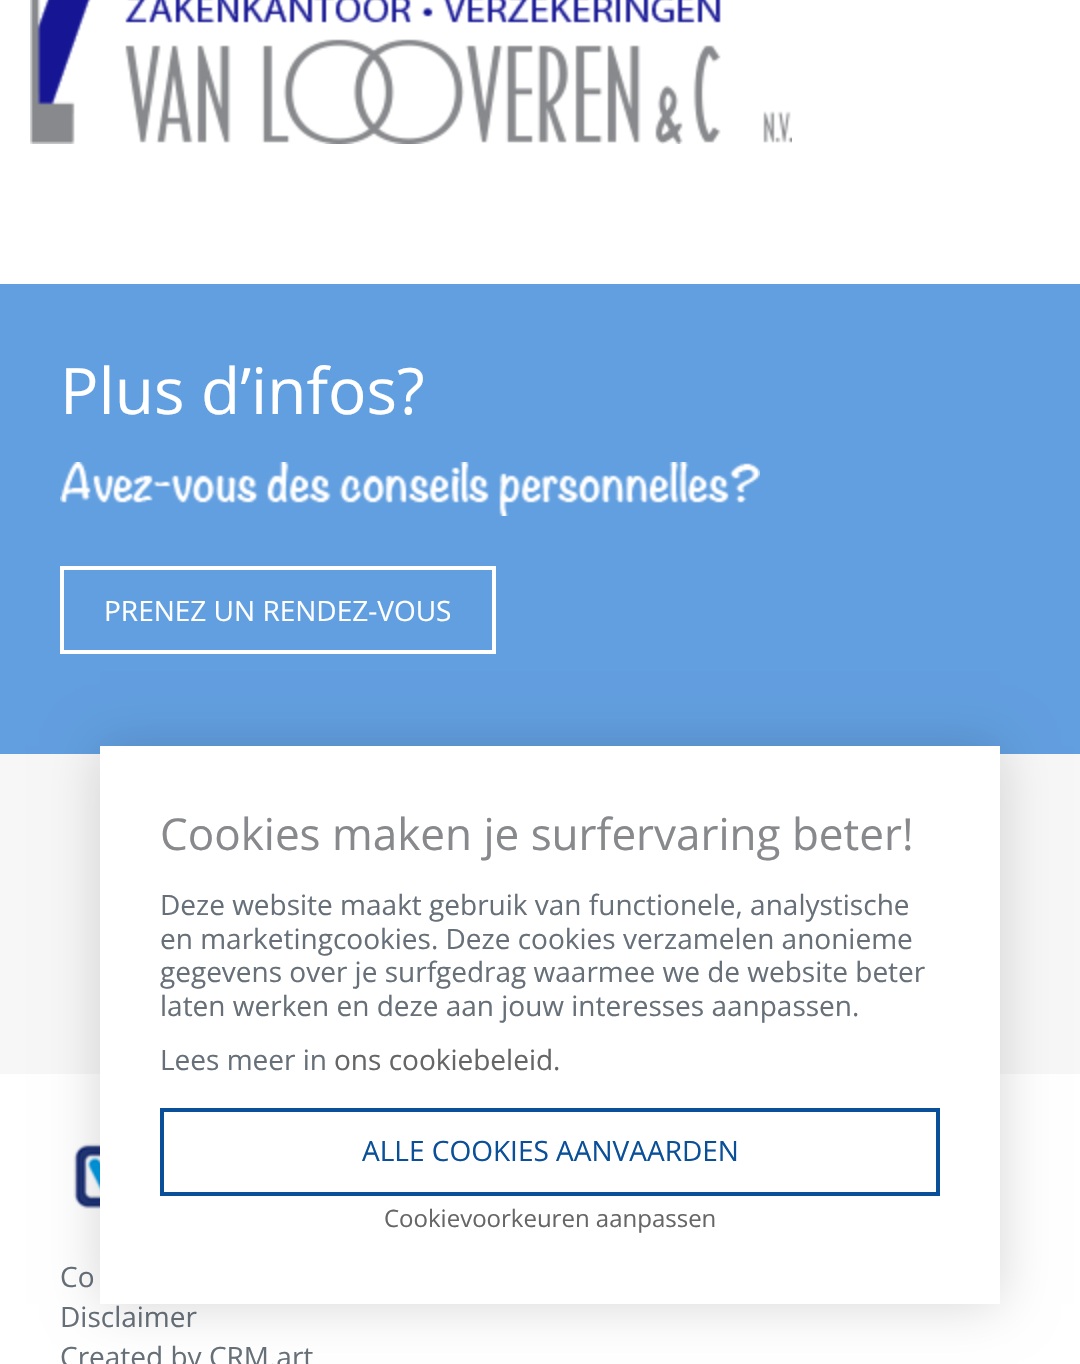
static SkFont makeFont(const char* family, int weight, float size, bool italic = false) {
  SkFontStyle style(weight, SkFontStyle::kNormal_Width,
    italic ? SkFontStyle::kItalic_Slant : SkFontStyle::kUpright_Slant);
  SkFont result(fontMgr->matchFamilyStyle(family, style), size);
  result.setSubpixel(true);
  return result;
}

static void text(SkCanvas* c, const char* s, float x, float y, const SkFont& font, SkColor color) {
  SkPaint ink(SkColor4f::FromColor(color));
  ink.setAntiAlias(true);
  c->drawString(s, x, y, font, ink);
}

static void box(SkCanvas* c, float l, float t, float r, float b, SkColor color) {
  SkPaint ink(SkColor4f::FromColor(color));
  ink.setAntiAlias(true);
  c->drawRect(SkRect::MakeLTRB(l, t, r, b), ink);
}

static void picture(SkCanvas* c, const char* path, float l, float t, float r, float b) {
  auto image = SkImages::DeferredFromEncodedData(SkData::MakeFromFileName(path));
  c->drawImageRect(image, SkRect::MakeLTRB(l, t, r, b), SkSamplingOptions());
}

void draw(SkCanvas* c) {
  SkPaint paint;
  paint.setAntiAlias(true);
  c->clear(0xffffffff);
  picture(c, "img_01.png", 30, 0, 792, 144);
  box(c, 0, 284, 1080, 754, 0xff629fe0);
  SkFont face1 = makeFont("Open Sans", 400, 64);
  text(c, "Plus d’infos?", 60, 414, face1, 0xffffffff);
  picture(c, "img_02.png", 60, 462, 760, 516);
  paint.setStyle(SkPaint::kStroke_Style);
  paint.setStrokeWidth(4);
  paint.setColor(0xffffffff);
  c->drawRect(SkRect::MakeLTRB(62, 568, 494, 652), paint);
  SkFont face2 = makeFont("Open Sans", 400, 28);
  text(c, "PRENEZ UN RENDEZ-VOUS", 104, 621, face2, 0xffffffff);
  box(c, 0, 754, 1080, 1074, 0xfff7f7f7);
  picture(c, "img_03.png", 73, 1137, 100, 1209);
  text(c, "Co", 60, 1287, face2, 0xff677079);
  text(c, "Disclaimer", 60, 1327, face2, 0xff677079);
  text(c, "Created by CRM.art", 60, 1367, face2, 0xff677079);
  paint.setStyle(SkPaint::kFill_Style);
  paint.setColor(0x29000000);
  paint.setMaskFilter(SkMaskFilter::MakeBlur(kNormal_SkBlurStyle, 25));
  c->drawRect(SkRect::MakeLTRB(100, 746, 1000, 1304), paint);
  paint.setMaskFilter(nullptr);
  box(c, 100, 746, 1000, 1304, 0xffffffff);
  SkFont face3 = makeFont("Open Sans", 400, 44);
  text(c, "Cookies maken je surfervaring beter!", 160, 850, face3, 0xff88898c);
  text(c, "Deze website maakt gebruik van functionele, analystische", 160, 915, face2, 0xff677079);
  text(c, "en marketingcookies. Deze cookies verzamelen anonieme", 160, 949, face2, 0xff677079);
  text(c, "gegevens over je surfgedrag waarmee we de website beter", 160, 982, face2, 0xff677079);
  text(c, "laten werken en deze aan jouw interesses aanpassen.", 160, 1016, face2, 0xff677079);
  text(c, "Lees meer in", 160, 1070, face2, 0xff677079);
  text(c, "ons cookiebeleid.", 334, 1070, face2, 0xff666666);
  paint.setStyle(SkPaint::kStroke_Style);
  paint.setColor(0xff0a5099);
  c->drawRect(SkRect::MakeLTRB(162, 1110, 938, 1194), paint);
  text(c, "ALLE COOKIES AANVAARDEN", 362, 1161, face2, 0xff0a5099);
  SkFont face4 = makeFont("Open Sans", 400, 24);
  text(c, "Cookievoorkeuren aanpassen", 384, 1227, face4, 0xff666666);
}
